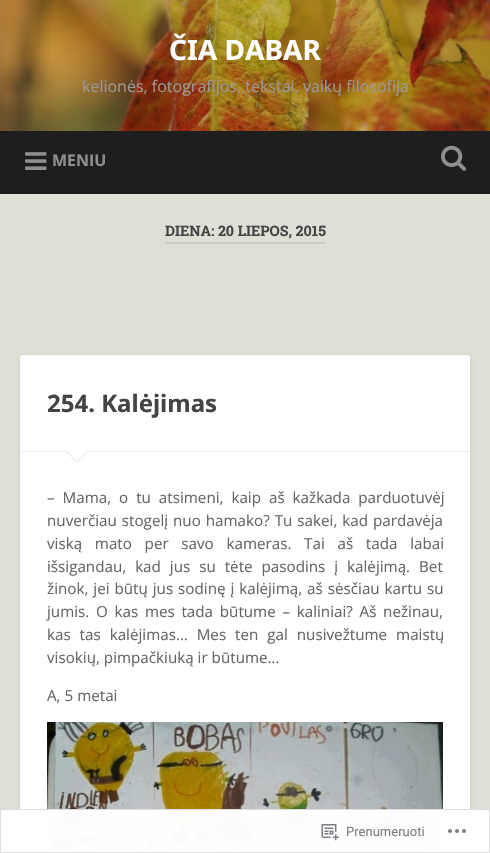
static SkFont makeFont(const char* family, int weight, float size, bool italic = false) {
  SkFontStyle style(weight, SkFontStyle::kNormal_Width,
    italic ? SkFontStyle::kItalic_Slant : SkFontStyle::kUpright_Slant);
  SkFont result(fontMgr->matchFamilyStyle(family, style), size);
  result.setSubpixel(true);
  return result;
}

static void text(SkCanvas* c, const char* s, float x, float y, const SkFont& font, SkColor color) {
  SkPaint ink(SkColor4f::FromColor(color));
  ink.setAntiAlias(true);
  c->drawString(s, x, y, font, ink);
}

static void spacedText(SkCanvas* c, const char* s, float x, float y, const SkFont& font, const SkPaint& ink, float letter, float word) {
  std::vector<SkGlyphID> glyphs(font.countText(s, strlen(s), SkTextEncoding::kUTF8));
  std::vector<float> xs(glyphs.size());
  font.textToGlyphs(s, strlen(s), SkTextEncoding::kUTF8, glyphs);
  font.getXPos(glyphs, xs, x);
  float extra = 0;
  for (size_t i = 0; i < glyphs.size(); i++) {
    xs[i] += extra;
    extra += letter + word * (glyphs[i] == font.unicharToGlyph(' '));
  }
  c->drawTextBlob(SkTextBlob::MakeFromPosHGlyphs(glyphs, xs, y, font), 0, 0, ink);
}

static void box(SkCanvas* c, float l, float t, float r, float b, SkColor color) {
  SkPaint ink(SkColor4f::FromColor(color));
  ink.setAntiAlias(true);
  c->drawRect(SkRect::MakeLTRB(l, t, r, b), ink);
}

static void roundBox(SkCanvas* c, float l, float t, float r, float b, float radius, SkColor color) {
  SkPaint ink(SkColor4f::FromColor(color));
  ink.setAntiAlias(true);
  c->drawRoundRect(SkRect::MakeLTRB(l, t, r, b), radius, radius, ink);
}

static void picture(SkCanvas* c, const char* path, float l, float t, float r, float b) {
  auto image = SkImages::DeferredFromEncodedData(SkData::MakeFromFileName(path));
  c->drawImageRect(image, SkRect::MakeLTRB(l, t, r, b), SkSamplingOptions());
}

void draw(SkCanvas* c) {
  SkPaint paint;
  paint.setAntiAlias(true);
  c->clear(0xffe0dfd5);
  picture(c, "img_01.png", 0, 0, 490, 131);
  SkFont face1 = makeFont("Noto Sans", 700, 28);
  text(c, "ČIA DABAR", 169, 60, face1, 0xffffffff);
  SkFont face2 = makeFont("Open Sans", 400, 16);
  text(c, "kelionės, fotografijos, tekstai, vaikų filosofija", 82, 92, face2, 0xff999999);
  box(c, 0, 131, 490, 194, 0xff1e1e1e);
  picture(c, "img_02.png", 25, 152, 47, 170);
  SkFont face3 = makeFont("Open Sans", 700, 16);
  text(c, "MENIU", 52, 166, face3, 0xff8f8f8f);
  picture(c, "img_03.png", 441, 145, 466, 171);
  box(c, 165, 242, 325, 244, 0xffcccccc);
  SkFont face4 = makeFont("Roboto Slab", 700, 14.4f);
  text(c, "DIENA: 20 LIEPOS, 2015", 165, 236, face4, 0xff444444);
  paint.setColor(0x1a000000);
  paint.setMaskFilter(SkMaskFilter::MakeBlur(kNormal_SkBlurStyle, 2));
  c->drawRoundRect(SkRect::MakeLTRB(20, 356, 470, 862), 3, 3, paint);
  paint.setMaskFilter(nullptr);
  roundBox(c, 20, 355, 470, 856, 3, 0xffffffff);
  box(c, 20, 451, 470, 452, 0xffeeeeee);
  SkFont face5 = makeFont("Noto Sans", 700, 24);
  text(c, "254. Kalėjimas", 47, 412, face5, 0xff444444);
  paint.setColor(0xffeeeeee);
  c->drawPath(SkPathBuilder().moveTo(65, 451).lineTo(89, 451).lineTo(77, 463).close().detach(), paint);
  paint.setColor(0xffffffff);
  c->drawPath(SkPathBuilder().moveTo(66, 450).lineTo(88, 450).lineTo(77, 461).close().detach(), paint);
  SkFont face6 = makeFont("Open Sans", 400, 15.2f);
  paint.setColor(0xff666666);
  spacedText(c, "– Mama, o tu atsimeni, kaip aš kažkada parduotuvėj", 47, 503, face6, paint, 0, 4);
  spacedText(c, "nuverčiau stogelį nuo hamako? Tu sakei, kad pardavėja", 47, 526, face6, paint, 0, 1);
  spacedText(c, "viską mato per savo kameras. Tai aš tada labai", 47, 549, face6, paint, 0, 8.75f);
  spacedText(c, "išsigandau, kad jus su tėte pasodins į kalėjimą. Bet", 47, 572, face6, paint, 0, 5);
  spacedText(c, "žinok, jei būtų jus sodinę į kalėjimą, aš sėsčiau kartu su", 47, 594, face6, paint, 0, 1);
  spacedText(c, "jumis. O kas mes tada būtume – kaliniai? Aš nežinau,", 47, 617, face6, paint, 0, 2.75f);
  spacedText(c, "kas tas kalėjimas… Mes ten gal nusivežtume maistų", 47, 640, face6, paint, 0, 5);
  text(c, "visokių, pimpačkiuką ir būtume…", 47, 663, face6, 0xff666666);
  text(c, "A, 5 metai", 47, 701, face6, 0xff666666);
  picture(c, "img_04.png", 47, 722, 443, 853);
  box(c, 0, 809, 490, 853, 0xfaffffff);
  paint.setStyle(SkPaint::kStroke_Style);
  paint.setStrokeWidth(1);
  paint.setColor(0xfadcdcde);
  c->drawRect(SkRect::MakeLTRB(0.5f, 809.5f, 489.5f, 852.5f), paint);
  picture(c, "img_05.png", 321, 824, 339, 841);
  SkFont face7 = makeFont("Roboto", 400, 13);
  text(c, "Prenumeruoti", 346, 836, face7, 0xff7b7f84);
  picture(c, "img_06.png", 448, 829, 466, 833);
}
